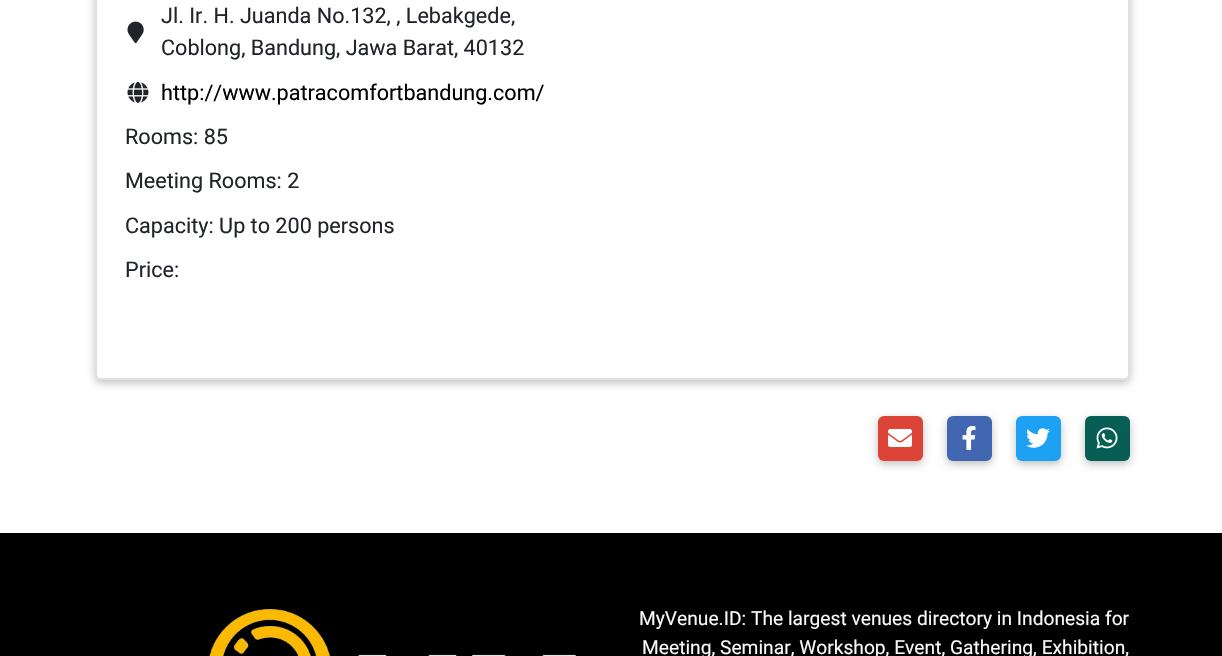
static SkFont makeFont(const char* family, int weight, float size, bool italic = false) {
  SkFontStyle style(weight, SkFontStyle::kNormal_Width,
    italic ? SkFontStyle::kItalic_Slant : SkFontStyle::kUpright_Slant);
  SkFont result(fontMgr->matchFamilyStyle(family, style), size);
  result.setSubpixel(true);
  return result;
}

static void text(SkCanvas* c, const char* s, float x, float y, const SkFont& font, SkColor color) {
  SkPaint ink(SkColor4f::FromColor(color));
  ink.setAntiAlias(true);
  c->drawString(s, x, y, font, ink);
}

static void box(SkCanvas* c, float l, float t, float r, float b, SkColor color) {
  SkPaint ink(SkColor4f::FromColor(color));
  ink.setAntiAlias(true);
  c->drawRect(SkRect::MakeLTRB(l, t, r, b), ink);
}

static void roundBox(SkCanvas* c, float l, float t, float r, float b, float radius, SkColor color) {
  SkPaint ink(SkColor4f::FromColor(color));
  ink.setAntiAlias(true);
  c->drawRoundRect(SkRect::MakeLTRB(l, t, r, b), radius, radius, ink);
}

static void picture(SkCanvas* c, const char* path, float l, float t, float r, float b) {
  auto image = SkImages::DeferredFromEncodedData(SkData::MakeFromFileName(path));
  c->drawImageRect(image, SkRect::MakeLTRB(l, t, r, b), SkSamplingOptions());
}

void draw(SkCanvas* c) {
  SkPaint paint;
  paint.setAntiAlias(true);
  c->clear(0xffffffff);
  paint.setColor(0x40000000);
  paint.setMaskFilter(SkMaskFilter::MakeBlur(kNormal_SkBlurStyle, 4));
  c->drawRoundRect(SkRect::MakeLTRB(95, -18, 1130, 383), 6, 6, paint);
  paint.setMaskFilter(nullptr);
  roundBox(c, 95, -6, 1130, 380, 6, 0xffffffff);
  paint.setStyle(SkPaint::kStroke_Style);
  paint.setStrokeWidth(2);
  paint.setColor(0x1f000000);
  c->drawRoundRect(SkRect::MakeLTRB(96, -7, 1129, 379), 5, 5, paint);
  picture(c, "img_01.png", 127, 21, 144, 44);
  SkFont face1 = makeFont("Roboto", 400, 21.6f);
  text(c, "Jl. Ir. H. Juanda No.132, , Lebakgede,", 161, 23, face1, 0xff212529);
  text(c, "Coblong, Bandung, Jawa Barat, 40132", 161, 55, face1, 0xff212529);
  picture(c, "img_02.png", 127, 82, 149, 103);
  text(c, "http://www.patracomfortbandung.com/", 161, 100, face1, 0xff000000);
  text(c, "Rooms: 85", 125, 144, face1, 0xff212529);
  text(c, "Meeting Rooms: 2", 125, 188, face1, 0xff212529);
  text(c, "Capacity: Up to 200 persons", 125, 233, face1, 0xff212529);
  text(c, "Price:", 125, 277, face1, 0xff212529);
  paint.setStyle(SkPaint::kFill_Style);
  paint.setColor(0x40000000);
  paint.setMaskFilter(SkMaskFilter::MakeBlur(kNormal_SkBlurStyle, 4));
  c->drawRoundRect(SkRect::MakeLTRB(878, 419, 923, 464), 6, 6, paint);
  paint.setMaskFilter(nullptr);
  roundBox(c, 878, 416, 923, 461, 6, 0xffdb4437);
  picture(c, "img_03.png", 888, 429, 912, 447);
  paint.setMaskFilter(SkMaskFilter::MakeBlur(kNormal_SkBlurStyle, 4));
  c->drawRoundRect(SkRect::MakeLTRB(947, 419, 992, 464), 6, 6, paint);
  paint.setMaskFilter(nullptr);
  roundBox(c, 947, 416, 992, 461, 6, 0xff4267b2);
  picture(c, "img_04.png", 962, 426, 976, 450);
  paint.setMaskFilter(SkMaskFilter::MakeBlur(kNormal_SkBlurStyle, 4));
  c->drawRoundRect(SkRect::MakeLTRB(1016, 419, 1061, 464), 6, 6, paint);
  paint.setMaskFilter(nullptr);
  roundBox(c, 1016, 416, 1061, 461, 6, 0xff1da1f2);
  picture(c, "img_05.png", 1026, 428, 1050, 448);
  paint.setMaskFilter(SkMaskFilter::MakeBlur(kNormal_SkBlurStyle, 4));
  c->drawRoundRect(SkRect::MakeLTRB(1085, 419, 1130, 464), 6, 6, paint);
  paint.setMaskFilter(nullptr);
  roundBox(c, 1085, 416, 1130, 461, 6, 0xff075e54);
  picture(c, "img_06.png", 1096, 427, 1118, 449);
  box(c, 0, 533, 1222, 656, 0xff000000);
  picture(c, "img_07.png", 209, 609, 576, 656);
  SkFont face2 = makeFont("Roboto", 400, 19.2f);
  text(c, "MyVenue.ID: The largest venues directory in Indonesia for", 639, 625, face2, 0xfff8f9fa);
  text(c, "Meeting, Seminar, Workshop, Event, Gathering, Exhibition,", 642, 654, face2, 0xfff8f9fa);
}
